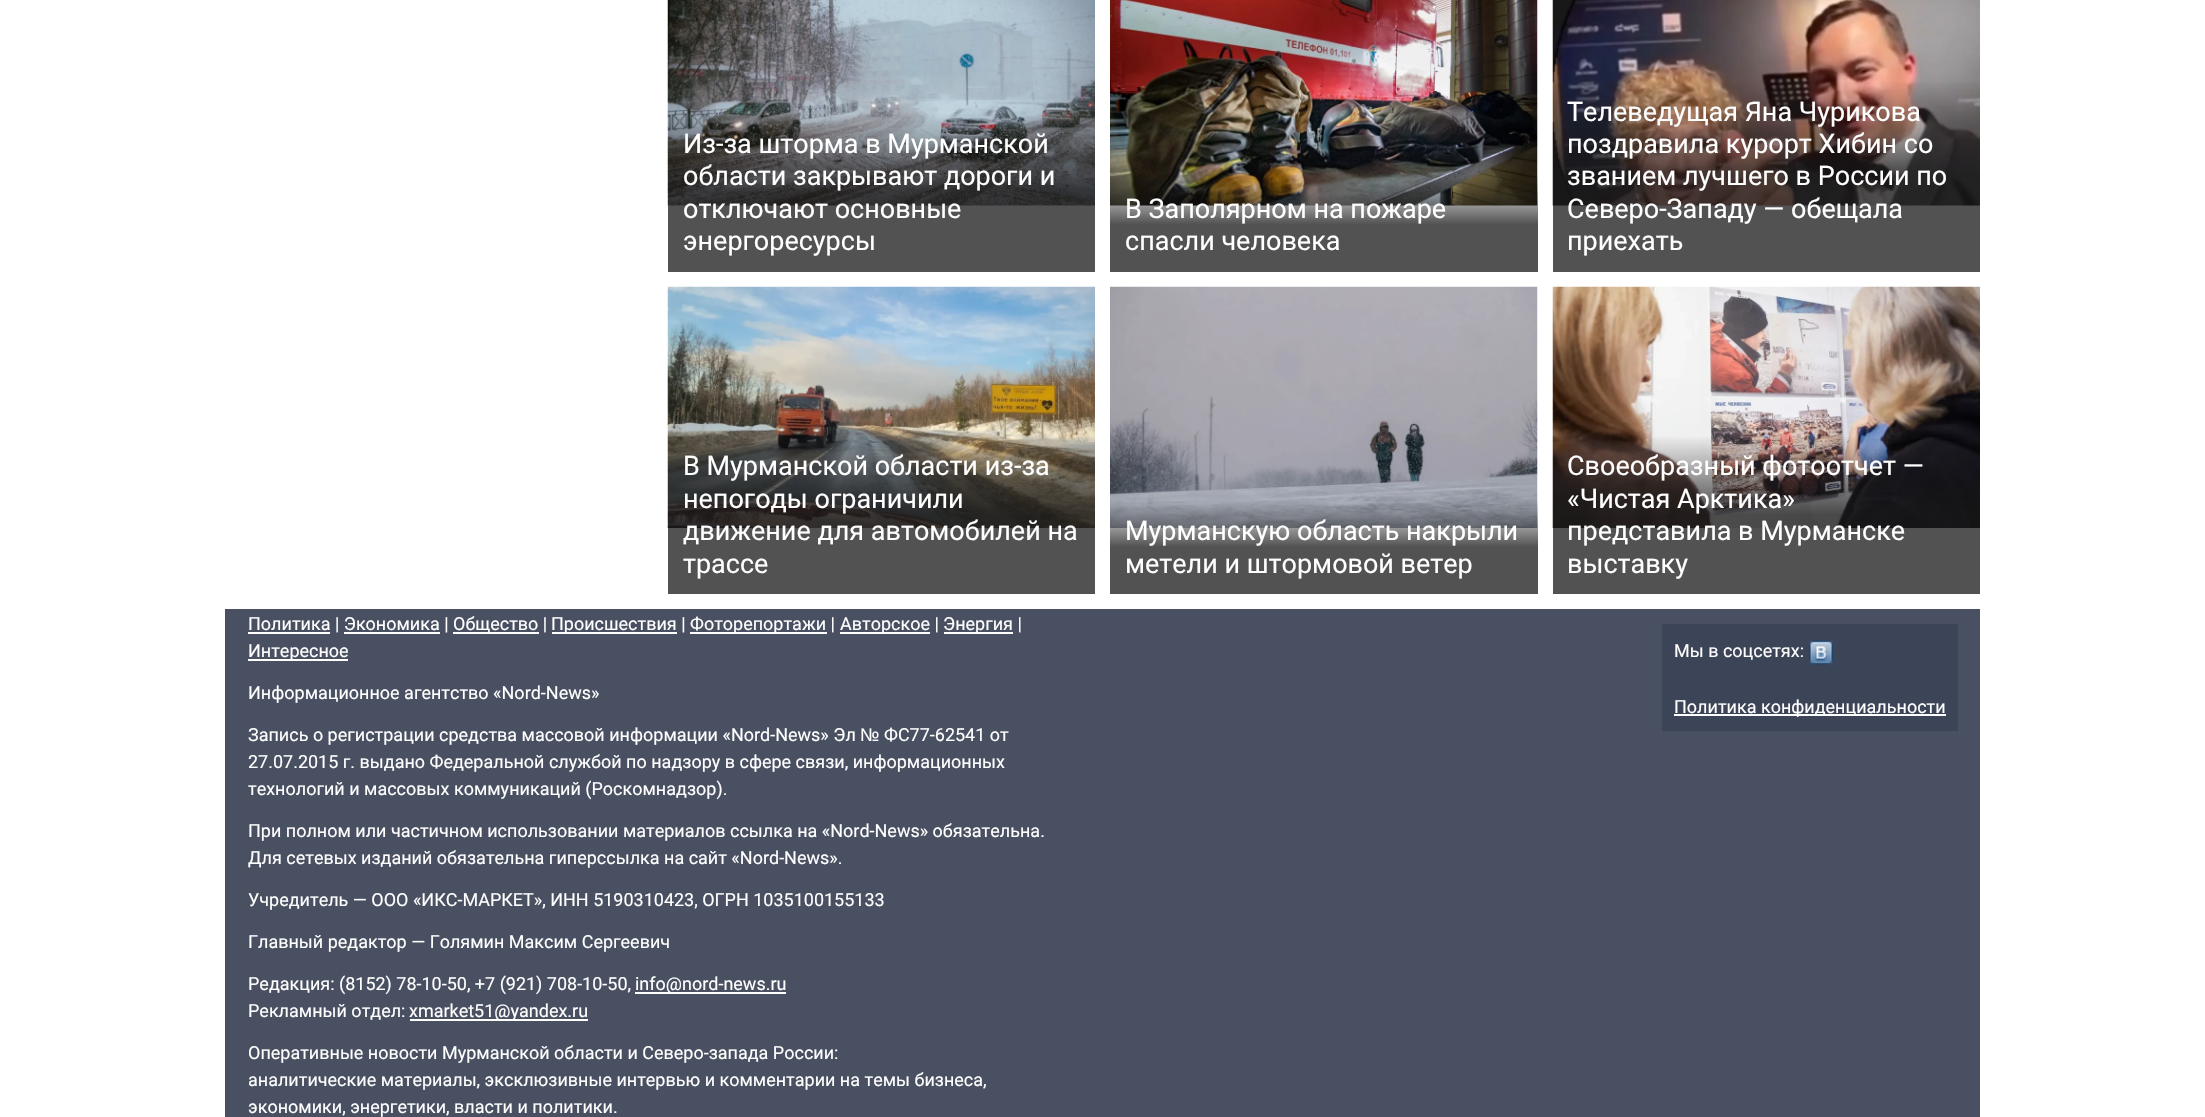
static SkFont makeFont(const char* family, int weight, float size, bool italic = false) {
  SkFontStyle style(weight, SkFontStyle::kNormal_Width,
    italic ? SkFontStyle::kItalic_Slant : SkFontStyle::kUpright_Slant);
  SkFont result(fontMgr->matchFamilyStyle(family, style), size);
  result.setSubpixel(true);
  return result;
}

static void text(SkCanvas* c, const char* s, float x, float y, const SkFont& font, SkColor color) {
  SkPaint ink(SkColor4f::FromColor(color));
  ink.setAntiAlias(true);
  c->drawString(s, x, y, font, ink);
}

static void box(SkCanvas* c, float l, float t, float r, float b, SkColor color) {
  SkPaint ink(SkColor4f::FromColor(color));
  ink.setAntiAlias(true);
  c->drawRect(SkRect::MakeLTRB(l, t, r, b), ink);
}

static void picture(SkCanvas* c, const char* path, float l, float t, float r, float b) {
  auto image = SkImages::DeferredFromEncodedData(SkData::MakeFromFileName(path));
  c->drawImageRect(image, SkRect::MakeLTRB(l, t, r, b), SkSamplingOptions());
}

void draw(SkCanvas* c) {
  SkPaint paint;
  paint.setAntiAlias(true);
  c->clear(0xffffffff);
  picture(c, "img_01.png", 667, 0, 1095, 206);
  {
    const SkColor colors[] = {0x00181818, 0xbf181818, 0xbf181818};
    const float stops[] = {0, 0.5f, 1};
    const SkPoint ends[] = {{881, 112}, {881, 272}};
    paint.setShader(SkGradientShader::MakeLinear(ends, colors, stops, 3, SkTileMode::kClamp));
    paint.setAlpha(255);
  }
  c->drawRect(SkRect::MakeLTRB(668, 114, 1095, 272), paint);
  SkFont face1 = makeFont("Roboto", 400, 27);
  text(c, "Из-за шторма в Мурманской", 683, 153, face1, 0xffffffff);
  text(c, "области закрывают дороги и", 683, 185, face1, 0xffffffff);
  text(c, "отключают основные", 683, 218, face1, 0xffffffff);
  text(c, "энергоресурсы", 683, 250, face1, 0xffffffff);
  picture(c, "img_02.png", 1110, 0, 1538, 206);
  {
    const SkColor colors[] = {0x00181818, 0xbf181818, 0xbf181818};
    const float stops[] = {0, 0.5f, 1};
    const SkPoint ends[] = {{1324, 177}, {1324, 272}};
    paint.setShader(SkGradientShader::MakeLinear(ends, colors, stops, 3, SkTileMode::kClamp));
    paint.setAlpha(255);
  }
  c->drawRect(SkRect::MakeLTRB(1110, 178, 1538, 272), paint);
  text(c, "В Заполярном на пожаре", 1125, 218, face1, 0xffffffff);
  text(c, "спасли человека", 1125, 250, face1, 0xffffffff);
  picture(c, "img_03.png", 1552, 0, 1980, 206);
  {
    const SkColor colors[] = {0x00181818, 0xbf181818, 0xbf181818};
    const float stops[] = {0, 0.5f, 1};
    const SkPoint ends[] = {{1766, 79}, {1766, 272}};
    paint.setShader(SkGradientShader::MakeLinear(ends, colors, stops, 3, SkTileMode::kClamp));
    paint.setAlpha(255);
  }
  c->drawRect(SkRect::MakeLTRB(1553, 82, 1980, 272), paint);
  text(c, "Телеведущая Яна Чурикова", 1567, 121, face1, 0xffffffff);
  text(c, "поздравила курорт Хибин со", 1567, 153, face1, 0xffffffff);
  text(c, "званием лучшего в России по", 1567, 185, face1, 0xffffffff);
  text(c, "Северо-Западу — обещала", 1567, 218, face1, 0xffffffff);
  text(c, "приехать", 1567, 250, face1, 0xffffffff);
  picture(c, "img_04.png", 667, 286, 1095, 528);
  {
    const SkColor colors[] = {0x00181818, 0xbf181818, 0xbf181818};
    const float stops[] = {0, 0.5f, 1};
    const SkPoint ends[] = {{881, 435}, {881, 594}};
    paint.setShader(SkGradientShader::MakeLinear(ends, colors, stops, 3, SkTileMode::kClamp));
    paint.setAlpha(255);
  }
  c->drawRect(SkRect::MakeLTRB(668, 437, 1095, 594), paint);
  text(c, "В Мурманской области из-за", 683, 475, face1, 0xffffffff);
  text(c, "непогоды ограничили", 683, 508, face1, 0xffffffff);
  text(c, "движение для автомобилей на", 683, 540, face1, 0xffffffff);
  text(c, "трассе", 683, 573, face1, 0xffffffff);
  picture(c, "img_05.png", 1110, 286, 1538, 528);
  {
    const SkColor colors[] = {0x00181818, 0xbf181818, 0xbf181818};
    const float stops[] = {0, 0.5f, 1};
    const SkPoint ends[] = {{1324, 500}, {1324, 594}};
    paint.setShader(SkGradientShader::MakeLinear(ends, colors, stops, 3, SkTileMode::kClamp));
    paint.setAlpha(255);
  }
  c->drawRect(SkRect::MakeLTRB(1110, 501, 1538, 594), paint);
  text(c, "Мурманскую область накрыли", 1125, 540, face1, 0xffffffff);
  text(c, "метели и штормовой ветер", 1125, 573, face1, 0xffffffff);
  picture(c, "img_06.png", 1552, 286, 1980, 528);
  {
    const SkColor colors[] = {0x00181818, 0xbf181818, 0xbf181818};
    const float stops[] = {0, 0.5f, 1};
    const SkPoint ends[] = {{1766, 435}, {1766, 594}};
    paint.setShader(SkGradientShader::MakeLinear(ends, colors, stops, 3, SkTileMode::kClamp));
    paint.setAlpha(255);
  }
  c->drawRect(SkRect::MakeLTRB(1553, 437, 1980, 594), paint);
  text(c, "Своеобразный фотоотчет —", 1567, 475, face1, 0xffffffff);
  text(c, "«Чистая Арктика»", 1567, 508, face1, 0xffffffff);
  text(c, "представила в Мурманске", 1567, 540, face1, 0xffffffff);
  text(c, "выставку", 1567, 573, face1, 0xffffffff);
  box(c, 225, 609, 1980, 1117, 0xff495062);
  box(c, 248, 632, 330, 634, 0xffffffff);
  SkFont face2 = makeFont("Roboto", 400, 18);
  text(c, "Политика | Экономика |", 248, 630, face2, 0xffffffff);
  box(c, 453, 632, 539, 634, 0xffffffff);
  text(c, "Общество |", 453, 630, face2, 0xffffffff);
  box(c, 552, 632, 677, 634, 0xffffffff);
  text(c, "Происшествия |", 551, 630, face2, 0xffffffff);
  box(c, 690, 632, 827, 634, 0xffffffff);
  text(c, "Фоторепортажи |", 690, 630, face2, 0xffffffff);
  box(c, 840, 632, 930, 634, 0xffffffff);
  text(c, "Авторское |", 840, 630, face2, 0xffffffff);
  box(c, 944, 632, 1013, 634, 0xffffffff);
  text(c, "Энергия |", 943, 630, face2, 0xffffffff);
  box(c, 344, 632, 440, 634, 0xffffffff);
  box(c, 248, 659, 348, 661, 0xffffffff);
  text(c, "Интересное", 248, 657, face2, 0xffffffff);
  text(c, "Информационное агентство «Nord-News»", 248, 699, face2, 0xffffffff);
  text(c, "Запись о регистрации средства массовой информации «Nord-News» Эл", 248, 741, face2, 0xffffffff);
  SkFont face3 = makeFont("Liberation Sans", 400, 18);
  text(c, "№", 860, 741, face3, 0xffffffff);
  text(c, "ФС77-62541 от", 884, 741, face2, 0xffffffff);
  text(c, "27.07.2015 г. выдано Федеральной службой по надзору в сфере связи, информационных", 248, 768, face2, 0xffffffff);
  text(c, "технологий и массовых коммуникаций (Роскомнадзор).", 248, 795, face2, 0xffffffff);
  text(c, "При полном или частичном использовании материалов ссылка на «Nord-News» обязательна.", 248, 837, face2, 0xffffffff);
  text(c, "Для сетевых изданий обязательна гиперссылка на сайт «Nord-News».", 248, 864, face2, 0xffffffff);
  text(c, "Учредитель — ООО «ИКС-МАРКЕТ», ИНН 5190310423, ОГРН 1035100155133", 248, 906, face2, 0xffffffff);
  text(c, "Главный редактор — Голямин Максим Сергеевич", 248, 948, face2, 0xffffffff);
  text(c, "Редакция: (8152) 78-10-50, +7 (921) 708-10-50,", 248, 990, face2, 0xffffffff);
  box(c, 635, 992, 786, 994, 0xffffffff);
  text(c, "info@nord-news.ru", 635, 990, face2, 0xffffffff);
  text(c, "Рекламный отдел:", 248, 1017, face2, 0xffffffff);
  box(c, 410, 1019, 588, 1021, 0xffffffff);
  text(c, "xmarket51@yandex.ru", 409, 1017, face2, 0xffffffff);
  text(c, "Оперативные новости Мурманской области и Северо-запада России:", 248, 1059, face2, 0xffffffff);
  text(c, "аналитические материалы, эксклюзивные интервью и комментарии на темы бизнеса,", 248, 1086, face2, 0xffffffff);
  text(c, "экономики, энергетики, власти и политики.", 248, 1113, face2, 0xffffffff);
  box(c, 1662, 624, 1958, 731, 0xff3c4457);
  text(c, "Мы в соцсетях:", 1674, 657, face2, 0xffffffff);
  picture(c, "img_07.png", 1809, 640, 1833, 665);
  box(c, 1674, 714, 1946, 716, 0xffffffff);
  text(c, "Политика конфиденциальности", 1674, 713, face2, 0xffffffff);
}
